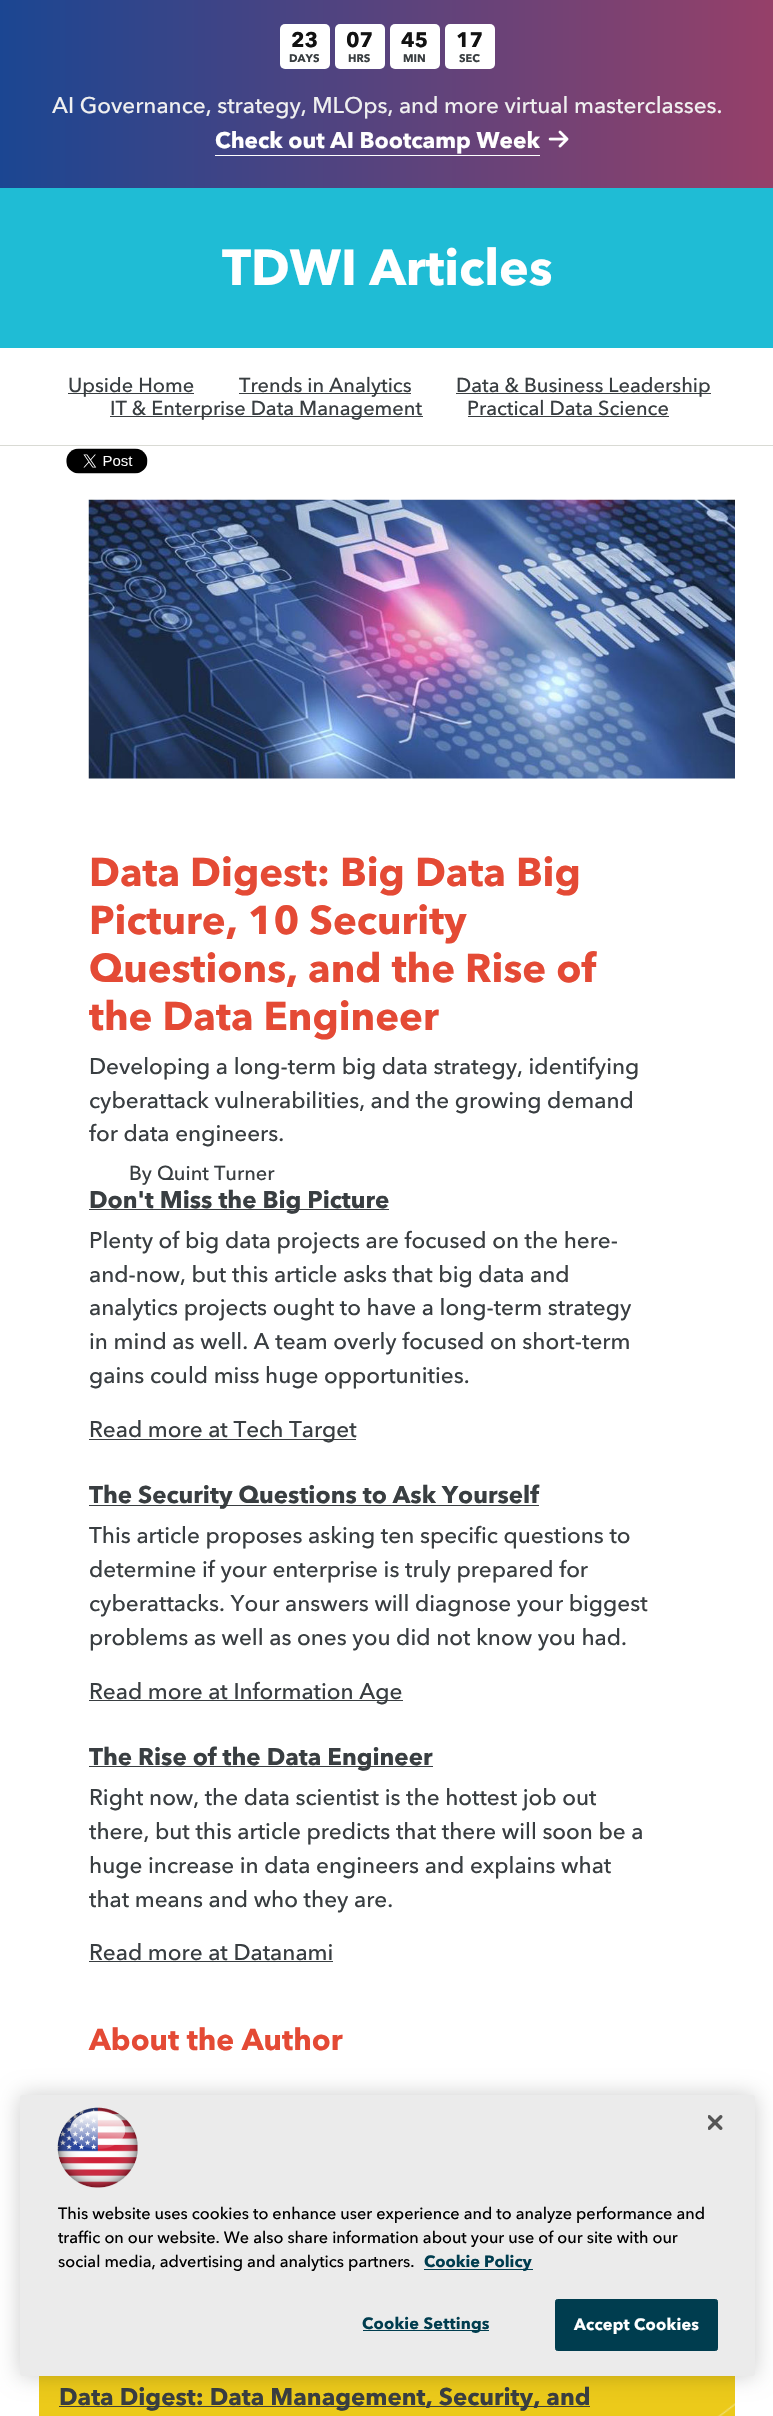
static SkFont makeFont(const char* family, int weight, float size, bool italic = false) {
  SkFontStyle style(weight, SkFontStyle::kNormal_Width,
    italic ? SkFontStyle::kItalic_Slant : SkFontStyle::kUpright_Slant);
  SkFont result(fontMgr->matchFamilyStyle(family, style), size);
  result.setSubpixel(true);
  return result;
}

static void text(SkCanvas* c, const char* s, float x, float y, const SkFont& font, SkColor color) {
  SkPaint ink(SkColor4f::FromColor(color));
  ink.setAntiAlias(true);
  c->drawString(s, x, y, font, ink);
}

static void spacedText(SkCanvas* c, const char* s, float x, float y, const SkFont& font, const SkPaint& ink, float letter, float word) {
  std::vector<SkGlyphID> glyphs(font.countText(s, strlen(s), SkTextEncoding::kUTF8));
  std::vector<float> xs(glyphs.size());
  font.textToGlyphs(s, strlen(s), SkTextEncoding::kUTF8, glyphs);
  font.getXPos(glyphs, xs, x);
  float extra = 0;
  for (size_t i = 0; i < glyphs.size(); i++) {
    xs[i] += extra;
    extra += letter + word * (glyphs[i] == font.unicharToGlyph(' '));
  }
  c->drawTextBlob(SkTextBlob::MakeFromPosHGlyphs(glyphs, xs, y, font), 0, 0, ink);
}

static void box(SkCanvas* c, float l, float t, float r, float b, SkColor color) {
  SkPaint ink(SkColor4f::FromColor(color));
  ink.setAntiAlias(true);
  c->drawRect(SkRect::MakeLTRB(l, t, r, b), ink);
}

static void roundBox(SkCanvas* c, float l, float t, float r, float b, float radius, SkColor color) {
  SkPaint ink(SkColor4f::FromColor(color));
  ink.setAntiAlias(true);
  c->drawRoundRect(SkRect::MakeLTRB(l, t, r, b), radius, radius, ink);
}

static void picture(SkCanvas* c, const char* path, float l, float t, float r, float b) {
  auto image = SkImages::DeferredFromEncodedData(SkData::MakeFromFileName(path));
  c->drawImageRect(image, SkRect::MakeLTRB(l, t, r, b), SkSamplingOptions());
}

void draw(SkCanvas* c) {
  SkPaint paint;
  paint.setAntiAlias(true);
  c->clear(0xffffffff);
  {
    const SkColor colors[] = {0xff1b4692, 0xff964069};
    const float stops[] = {0, 1};
    const SkPoint ends[] = {{0, 1.9f}, {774, 1.9f}};
    paint.setShader(SkGradientShader::MakeLinear(ends, colors, stops, 2, SkTileMode::kClamp));
    paint.setAlpha(255);
  }
  c->drawRect(SkRect::MakeLTRB(0, 0, 773, 4), paint);
  {
    const SkColor colors[] = {0xff1b4692, 0xff964069};
    const float stops[] = {0, 1};
    const SkPoint ends[] = {{0, 96}, {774, 96}};
    paint.setShader(SkGradientShader::MakeLinear(ends, colors, stops, 2, SkTileMode::kClamp));
    paint.setAlpha(255);
  }
  c->drawRect(SkRect::MakeLTRB(0, 4, 773, 188), paint);
  roundBox(c, 280, 24, 330, 69, 5, 0xffffffff);
  SkFont face1 = makeFont("Avenir Next", 700, 21);
  text(c, "23", 291, 47, face1, 0xff121212);
  SkFont face2 = makeFont("Avenir Next", 700, 11);
  text(c, "DAYS", 289, 62, face2, 0xff393e41);
  roundBox(c, 335, 24, 385, 69, 5, 0xffffffff);
  text(c, "07", 346, 47, face1, 0xff121212);
  text(c, "HRS", 348, 62, face2, 0xff393e41);
  roundBox(c, 390, 24, 440, 69, 5, 0xffffffff);
  text(c, "45", 401, 47, face1, 0xff121212);
  text(c, "MIN", 403, 62, face2, 0xff393e41);
  roundBox(c, 445, 24, 495, 69, 5, 0xffffffff);
  text(c, "17", 456, 47, face1, 0xff121212);
  text(c, "SEC", 459, 62, face2, 0xff393e41);
  SkFont face3 = makeFont("Avenir Next", 500, 22.5f);
  text(c, "AI Governance, strategy, MLOps, and more virtual masterclasses.", 52, 113, face3, 0xfff0f0f0);
  SkFont face4 = makeFont("Avenir Next", 700, 22.5f);
  text(c, "Check out AI Bootcamp Week", 215, 148, face4, 0xffffffff);
  box(c, 215, 155, 540, 156, 0xffffffff);
  picture(c, "img_01.png", 548, 130, 569, 148);
  box(c, 0, 188, 773, 348, 0xff1fbcd5);
  SkFont face5 = makeFont("Avenir Next", 700, 50);
  text(c, "TDWI Articles", 222, 285, face5, 0xffffffff);
  box(c, 0, 445, 773, 446, 0xffd9dad4);
  box(c, 68, 393, 194, 394, 0xff393e41);
  SkFont face6 = makeFont("Avenir Next", 500, 20);
  text(c, "Upside Home", 68, 392, face6, 0xff393e41);
  box(c, 239, 393, 411, 394, 0xff393e41);
  text(c, "Trends in Analytics", 239, 392, face6, 0xff393e41);
  box(c, 456, 393, 711, 394, 0xff393e41);
  text(c, "Data & Business Leadership", 456, 392, face6, 0xff393e41);
  box(c, 110, 416, 423, 417, 0xff393e41);
  text(c, "IT & Enterprise Data Management", 110, 415, face6, 0xff393e41);
  text(c, "Practical Data Science", 467, 415, face6, 0xff393e41);
  box(c, 468, 416, 669, 417, 0xff393e41);
  picture(c, "img_02.png", 66, 448, 148, 474);
  picture(c, "img_03.png", 88, 499, 735, 779);
  SkFont face7 = makeFont("Avenir Next", 700, 40);
  text(c, "Data Digest: Big Data Big", 89, 886, face7, 0xffe44a35);
  text(c, "Picture, 10 Security", 89, 934, face7, 0xffe44a35);
  text(c, "Questions, and the Rise of", 89, 982, face7, 0xffe44a35);
  text(c, "the Data Engineer", 89, 1030, face7, 0xffe44a35);
  text(c, "Developing a long-term big data strategy, identifying", 89, 1074, face3, 0xff393e41);
  text(c, "cyberattack vulnerabilities, and the growing demand", 89, 1108, face3, 0xff393e41);
  text(c, "for data engineers.", 89, 1141, face3, 0xff393e41);
  text(c, "By Quint Turner", 129, 1180, face6, 0xff393e41);
  box(c, 89, 1209, 389, 1210, 0xff393e41);
  SkFont face8 = makeFont("Avenir Next", 700, 24);
  text(c, "Don't Miss the Big Picture", 89, 1208, face8, 0xff393e41);
  text(c, "Plenty of big data projects are focused on the here-", 89, 1248, face3, 0xff393e41);
  text(c, "and-now, but this article asks that big data and", 89, 1282, face3, 0xff393e41);
  text(c, "analytics projects ought to have a long-term strategy", 89, 1315, face3, 0xff393e41);
  text(c, "in mind as well. A team overly focused on short-term", 89, 1349, face3, 0xff393e41);
  text(c, "gains could miss huge opportunities.", 89, 1383, face3, 0xff393e41);
  box(c, 89, 1439, 356, 1440, 0xff393e41);
  text(c, "Read more at Tech Target", 89, 1437, face3, 0xff393e41);
  box(c, 89, 1505, 539, 1506, 0xff393e41);
  text(c, "The Security Questions to Ask Yourself", 89, 1503, face8, 0xff393e41);
  text(c, "This article proposes asking ten specific questions to", 89, 1543, face3, 0xff393e41);
  text(c, "determine if your enterprise is truly prepared for", 89, 1577, face3, 0xff393e41);
  text(c, "cyberattacks. Your answers will diagnose your biggest", 89, 1611, face3, 0xff393e41);
  text(c, "problems as well as ones you did not know you had.", 89, 1645, face3, 0xff393e41);
  box(c, 89, 1700, 403, 1701, 0xff393e41);
  text(c, "Read more at Information Age", 89, 1699, face3, 0xff393e41);
  box(c, 89, 1766, 433, 1767, 0xff393e41);
  text(c, "The Rise of the Data Engineer", 89, 1765, face8, 0xff393e41);
  text(c, "Right now, the data scientist is the hottest job out", 89, 1805, face3, 0xff393e41);
  text(c, "there, but this article predicts that there will soon be a", 89, 1839, face3, 0xff393e41);
  text(c, "huge increase in data engineers and explains what", 89, 1873, face3, 0xff393e41);
  text(c, "that means and who they are.", 89, 1907, face3, 0xff393e41);
  text(c, "Read more at Datanami", 89, 1960, face3, 0xff393e41);
  box(c, 89, 1961, 333, 1962, 0xff393e41);
  SkFont face9 = makeFont("Avenir Next", 700, 30);
  text(c, "About the Author", 89, 2050, face9, 0xffe44a35);
  box(c, 39, 2376, 735, 2416, 0xffecca1a);
  picture(c, "img_04.png", 717, 2403, 735, 2416);
  box(c, 59, 2406, 590, 2407, 0xff393e41);
  text(c, "Data Digest: Data Management, Security, and", 59, 2405, face8, 0xff393e41);
  paint.setShader(nullptr);
  paint.setColor(0x33000000);
  paint.setMaskFilter(SkMaskFilter::MakeBlur(kNormal_SkBlurStyle, 11));
  c->drawRoundRect(SkRect::MakeLTRB(20, 2095, 755, 2376), 3, 3, paint);
  paint.setMaskFilter(nullptr);
  roundBox(c, 20, 2095, 755, 2376, 3, 0xffebebeb);
  picture(c, "img_05.png", 708, 2115, 723, 2130);
  picture(c, "img_06.png", 57, 2107, 138, 2188);
  SkFont face10 = makeFont("Avenir Next", 500, 16.25f);
  text(c, "This website uses cookies to enhance user experience and to analyze performance and", 58, 2219, face10, 0xff000000);
  text(c, "traffic on our website. We also share information about your use of our site with our", 58, 2243, face10, 0xff000000);
  text(c, "social media, advertising and analytics partners.", 58, 2267, face10, 0xff000000);
  box(c, 424, 2269, 533, 2270, 0xff003d4f);
  SkFont face11 = makeFont("Avenir Next", 700, 16.25f);
  text(c, "Cookie Policy", 424, 2267, face11, 0xff003d4f);
  box(c, 363, 2330, 489, 2331, 0xff003d4f);
  paint.setColor(0xff003d4f);
  spacedText(c, "Cookie Settings", 362, 2329, face11, paint, 0.2f, 0);
  c->drawRoundRect(SkRect::MakeLTRB(555.5f, 2299.5f, 717.5f, 2350.5f), 2, 2, paint);
  paint.setStyle(SkPaint::kStroke_Style);
  paint.setStrokeWidth(1);
  c->drawRoundRect(SkRect::MakeLTRB(555.5f, 2299.5f, 717.5f, 2350.5f), 2, 2, paint);
  paint.setStyle(SkPaint::kFill_Style);
  paint.setColor(0xffffffff);
  spacedText(c, "Accept Cookies", 574, 2330, face11, paint, 0.2f, 0);
}
